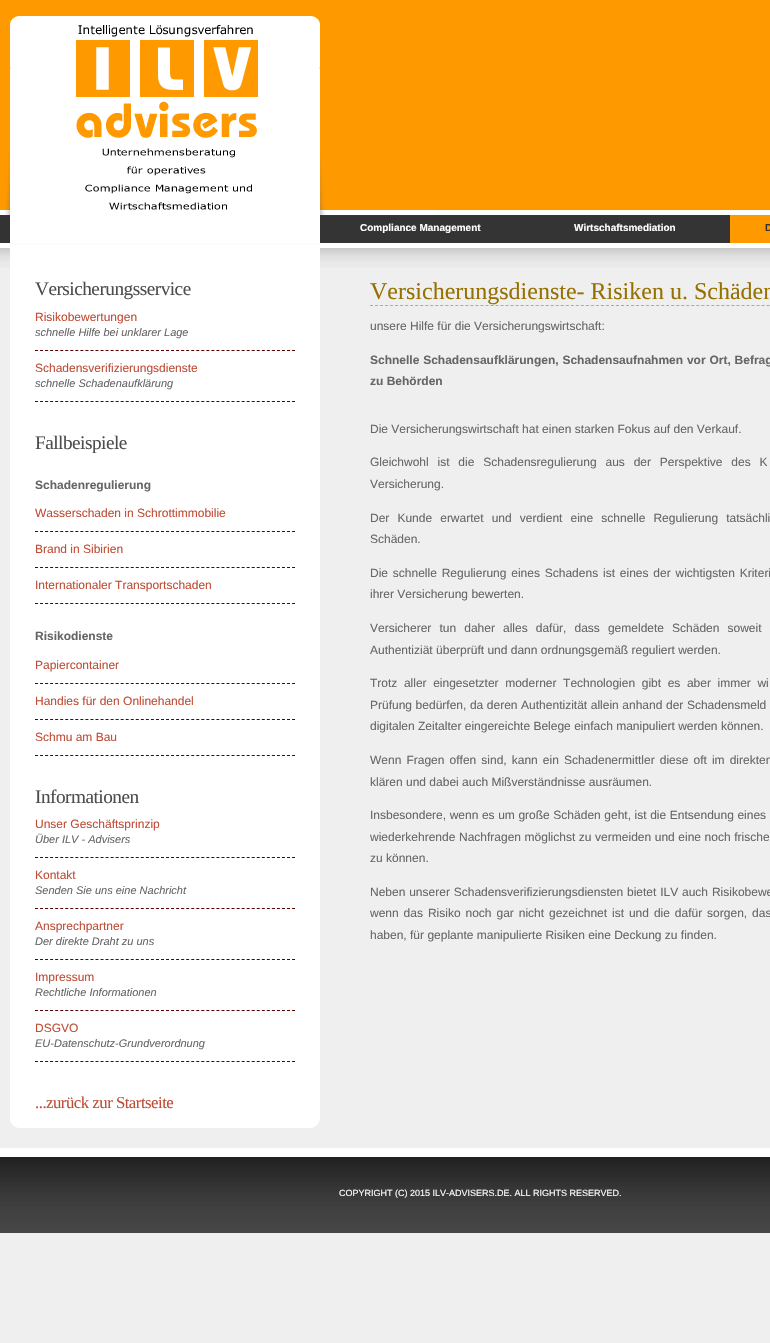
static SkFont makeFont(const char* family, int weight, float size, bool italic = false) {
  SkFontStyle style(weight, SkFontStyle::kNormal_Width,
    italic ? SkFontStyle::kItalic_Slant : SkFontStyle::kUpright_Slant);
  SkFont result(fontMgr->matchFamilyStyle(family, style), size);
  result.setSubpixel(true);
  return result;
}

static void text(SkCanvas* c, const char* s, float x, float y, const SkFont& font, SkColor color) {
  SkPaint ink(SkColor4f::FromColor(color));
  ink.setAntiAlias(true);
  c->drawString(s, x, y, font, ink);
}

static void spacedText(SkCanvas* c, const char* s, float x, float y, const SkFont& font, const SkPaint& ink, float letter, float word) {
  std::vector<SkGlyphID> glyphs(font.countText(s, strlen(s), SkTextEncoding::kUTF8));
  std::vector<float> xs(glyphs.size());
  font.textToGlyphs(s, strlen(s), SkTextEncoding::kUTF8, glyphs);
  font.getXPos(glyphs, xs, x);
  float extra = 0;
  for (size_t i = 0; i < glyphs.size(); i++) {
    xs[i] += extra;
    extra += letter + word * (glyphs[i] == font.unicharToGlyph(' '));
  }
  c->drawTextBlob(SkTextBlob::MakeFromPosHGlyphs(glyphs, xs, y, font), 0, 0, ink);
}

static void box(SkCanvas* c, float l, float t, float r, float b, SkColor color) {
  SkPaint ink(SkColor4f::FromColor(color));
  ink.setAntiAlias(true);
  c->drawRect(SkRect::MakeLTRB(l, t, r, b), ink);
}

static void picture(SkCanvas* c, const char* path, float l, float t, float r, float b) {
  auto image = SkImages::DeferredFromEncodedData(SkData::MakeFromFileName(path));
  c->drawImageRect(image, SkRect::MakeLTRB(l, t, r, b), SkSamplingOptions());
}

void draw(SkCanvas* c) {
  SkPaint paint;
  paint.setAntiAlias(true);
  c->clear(0xffefefef);
  picture(c, "img_01.png", 0, 0, 770, 248);
  picture(c, "img_02.png", 0, 16, 437, 215);
  box(c, 10, 215, 320, 243, 0xffffffff);
  box(c, 0, 215, 10, 243, 0xff333333);
  SkFont face1 = makeFont("Liberation Sans", 700, 10);
  text(c, "Compliance Management", 360, 231, face1, 0xffffffff);
  text(c, "Wirtschaftsmediation", 574, 231, face1, 0xffffffff);
  box(c, 730, 215, 770, 243, 0xffff9900);
  text(c, "D", 765, 231, face1, 0xff333333);
  picture(c, "img_03.png", 0, 268, 770, 1128);
  picture(c, "img_04.png", 0, 248, 770, 268);
  picture(c, "img_05.png", 10, 1120, 320, 1128);
  SkFont face2 = makeFont("Liberation Serif", 400, 19.25f);
  paint.setColor(0xff4d4d4d);
  spacedText(c, "Versicherungsservice", 35, 295, face2, paint, -0.5f, 0);
  paint.setStyle(SkPaint::kStroke_Style);
  paint.setStrokeWidth(1);
  paint.setColor(0xff590000);
  paint.setPathEffect(SkDashPathEffect::Make({{3, 2.04f}}, 0));
  c->drawPath(SkPathBuilder().moveTo(35, 350.5f).lineTo(295, 350.5f).detach(), paint);
  paint.setPathEffect(nullptr);
  SkFont face3 = makeFont("Liberation Sans", 400, 12);
  text(c, "Risikobewertungen", 35, 321, face3, 0xffbf4d36);
  SkFont face4 = makeFont("Liberation Sans", 400, 11, true);
  text(c, "schnelle Hilfe bei unklarer Lage", 35, 336, face4, 0xff666666);
  paint.setPathEffect(SkDashPathEffect::Make({{3, 2.04f}}, 0));
  c->drawPath(SkPathBuilder().moveTo(35, 401.5f).lineTo(295, 401.5f).detach(), paint);
  paint.setPathEffect(nullptr);
  text(c, "Schadensverifizierungsdienste", 35, 372, face3, 0xffbf4d36);
  text(c, "schnelle Schadenaufklärung", 35, 387, face4, 0xff666666);
  paint.setStyle(SkPaint::kFill_Style);
  paint.setColor(0xff4d4d4d);
  spacedText(c, "Fallbeispiele", 35, 449, face2, paint, -0.5f, 0);
  SkFont face5 = makeFont("Liberation Sans", 700, 12);
  text(c, "Schadenregulierung", 35, 489, face5, 0xff666666);
  paint.setStyle(SkPaint::kStroke_Style);
  paint.setColor(0xff590000);
  paint.setPathEffect(SkDashPathEffect::Make({{3, 2.04f}}, 0));
  c->drawPath(SkPathBuilder().moveTo(35, 531.5f).lineTo(295, 531.5f).detach(), paint);
  paint.setPathEffect(nullptr);
  text(c, "Wasserschaden in Schrottimmobilie", 35, 517, face3, 0xffbf4d36);
  paint.setPathEffect(SkDashPathEffect::Make({{3, 2.04f}}, 0));
  c->drawPath(SkPathBuilder().moveTo(35, 567.5f).lineTo(295, 567.5f).detach(), paint);
  paint.setPathEffect(nullptr);
  text(c, "Brand in Sibirien", 35, 553, face3, 0xffbf4d36);
  paint.setPathEffect(SkDashPathEffect::Make({{3, 2.04f}}, 0));
  c->drawPath(SkPathBuilder().moveTo(35, 603.5f).lineTo(295, 603.5f).detach(), paint);
  paint.setPathEffect(nullptr);
  text(c, "Internationaler Transportschaden", 35, 589, face3, 0xffbf4d36);
  text(c, "Risikodienste", 35, 640, face5, 0xff666666);
  paint.setPathEffect(SkDashPathEffect::Make({{3, 2.04f}}, 0));
  c->drawPath(SkPathBuilder().moveTo(35, 683.5f).lineTo(295, 683.5f).detach(), paint);
  paint.setPathEffect(nullptr);
  text(c, "Papiercontainer", 35, 669, face3, 0xffbf4d36);
  paint.setPathEffect(SkDashPathEffect::Make({{3, 2.04f}}, 0));
  c->drawPath(SkPathBuilder().moveTo(35, 719.5f).lineTo(295, 719.5f).detach(), paint);
  paint.setPathEffect(nullptr);
  text(c, "Handies für den Onlinehandel", 35, 705, face3, 0xffbf4d36);
  paint.setPathEffect(SkDashPathEffect::Make({{3, 2.04f}}, 0));
  c->drawPath(SkPathBuilder().moveTo(35, 755.5f).lineTo(295, 755.5f).detach(), paint);
  paint.setPathEffect(nullptr);
  text(c, "Schmu am Bau", 35, 741, face3, 0xffbf4d36);
  paint.setStyle(SkPaint::kFill_Style);
  paint.setColor(0xff4d4d4d);
  spacedText(c, "Informationen", 35, 803, face2, paint, -0.5f, 0);
  paint.setStyle(SkPaint::kStroke_Style);
  paint.setColor(0xff590000);
  paint.setPathEffect(SkDashPathEffect::Make({{3, 2.04f}}, 0));
  c->drawPath(SkPathBuilder().moveTo(35, 857.5f).lineTo(295, 857.5f).detach(), paint);
  paint.setPathEffect(nullptr);
  text(c, "Unser Geschäftsprinzip", 35, 828, face3, 0xffbf4d36);
  text(c, "Über ILV - Advisers", 35, 843, face4, 0xff666666);
  paint.setPathEffect(SkDashPathEffect::Make({{3, 2.04f}}, 0));
  c->drawPath(SkPathBuilder().moveTo(35, 908.5f).lineTo(295, 908.5f).detach(), paint);
  paint.setPathEffect(nullptr);
  text(c, "Kontakt", 35, 879, face3, 0xffbf4d36);
  text(c, "Senden Sie uns eine Nachricht", 35, 894, face4, 0xff666666);
  paint.setPathEffect(SkDashPathEffect::Make({{3, 2.04f}}, 0));
  c->drawPath(SkPathBuilder().moveTo(35, 959.5f).lineTo(295, 959.5f).detach(), paint);
  paint.setPathEffect(nullptr);
  text(c, "Ansprechpartner", 35, 930, face3, 0xffbf4d36);
  text(c, "Der direkte Draht zu uns", 35, 945, face4, 0xff666666);
  paint.setPathEffect(SkDashPathEffect::Make({{3, 2.04f}}, 0));
  c->drawPath(SkPathBuilder().moveTo(35, 1010.5f).lineTo(295, 1010.5f).detach(), paint);
  paint.setPathEffect(nullptr);
  text(c, "Impressum", 35, 981, face3, 0xffbf4d36);
  text(c, "Rechtliche Informationen", 35, 996, face4, 0xff666666);
  paint.setPathEffect(SkDashPathEffect::Make({{3, 2.04f}}, 0));
  c->drawPath(SkPathBuilder().moveTo(35, 1061.5f).lineTo(295, 1061.5f).detach(), paint);
  paint.setPathEffect(nullptr);
  text(c, "DSGVO", 35, 1032, face3, 0xffbf4d36);
  text(c, "EU-Datenschutz-Grundverordnung", 35, 1047, face4, 0xff666666);
  SkFont face6 = makeFont("Liberation Serif", 400, 16.75f);
  paint.setStyle(SkPaint::kFill_Style);
  paint.setColor(0xffbf4d36);
  spacedText(c, "...zurück zur Startseite", 35, 1108, face6, paint, -0.5f, 0);
  paint.setStyle(SkPaint::kStroke_Style);
  paint.setColor(0xffa9a9a9);
  paint.setPathEffect(SkDashPathEffect::Make({{3, 2.02f}}, 0));
  c->drawPath(SkPathBuilder().moveTo(370, 305.5f).lineTo(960, 305.5f).detach(), paint);
  paint.setPathEffect(nullptr);
  SkFont face7 = makeFont("Liberation Serif", 400, 24);
  text(c, "Versicherungsdienste- Risiken u. Schäden", 370, 299, face7, 0xff967001);
  text(c, "unsere Hilfe für die Versicherungswirtschaft:", 370, 330, face3, 0xff666666);
  paint.setStyle(SkPaint::kFill_Style);
  paint.setColor(0xff666666);
  spacedText(c, "Schnelle Schadensaufklärungen, Schadensaufnahmen vor Ort, Befrag", 370, 364, face5, paint, 0, 0.5f);
  text(c, "zu Behörden", 370, 385, face5, 0xff666666);
  text(c, "Die Versicherungswirtschaft hat einen starken Fokus auf den Verkauf.", 370, 433, face3, 0xff666666);
  spacedText(c, "Gleichwohl ist die Schadensregulierung aus der Perspektive des K", 370, 466, face3, paint, 0, 5.5f);
  text(c, "Versicherung.", 370, 488, face3, 0xff666666);
  spacedText(c, "Der Kunde erwartet und verdient eine schnelle Regulierung tatsächli", 370, 522, face3, paint, 0, 4.75f);
  text(c, "Schäden.", 370, 543, face3, 0xff666666);
  spacedText(c, "Die schnelle Regulierung eines Schadens ist eines der wichtigsten Kriteri", 370, 577, face3, paint, 0, 1.5f);
  text(c, "ihrer Versicherung bewerten.", 370, 598, face3, 0xff666666);
  spacedText(c, "Versicherer tun daher alles dafür, dass gemeldete Schäden soweit", 370, 632, face3, paint, 0, 4.75f);
  text(c, "Authentiziät überprüft und dann ordnungsgemäß reguliert werden.", 370, 654, face3, 0xff666666);
  spacedText(c, "Trotz aller eingesetzter moderner Technologien gibt es aber immer wi", 370, 687, face3, paint, 0, 3.25f);
  spacedText(c, "Prüfung bedürfen, da deren Authentizität allein anhand der Schadensmeld", 370, 709, face3, paint, 0, 0.25f);
  text(c, "digitalen Zeitalter eingereichte Belege einfach manipuliert werden können.", 370, 730, face3, 0xff666666);
  spacedText(c, "Wenn Fragen offen sind, kann ein Schadenermittler diese oft im direkten", 370, 764, face3, paint, 0, 1.75f);
  text(c, "klären und dabei auch Mißverständnisse ausräumen.", 370, 786, face3, 0xff666666);
  spacedText(c, "Insbesondere, wenn es um große Schäden geht, ist die Entsendung eines", 370, 819, face3, paint, 0, 0.25f);
  spacedText(c, "wiederkehrende Nachfragen möglichst zu vermeiden und eine noch frische", 370, 841, face3, paint, 0, 0.25f);
  text(c, "zu können.", 370, 862, face3, 0xff666666);
  spacedText(c, "Neben unserer Schadensverifizierungsdiensten bietet ILV auch Risikobewe", 370, 896, face3, paint, 0, 0.5f);
  spacedText(c, "wenn das Risiko noch gar nicht gezeichnet ist und die dafür sorgen, das", 370, 917, face3, paint, 0, 1.6f);
  text(c, "haben, für geplante manipulierte Risiken eine Deckung zu finden.", 370, 939, face3, 0xff666666);
  picture(c, "img_06.png", 0, 1148, 770, 1233);
  SkFont face8 = makeFont("Liberation Sans", 400, 9);
  text(c, "COPYRIGHT (C) 2015 ILV-ADVISERS.DE. ALL RIGHTS RESERVED.", 339, 1196, face8, 0xffffffff);
}
